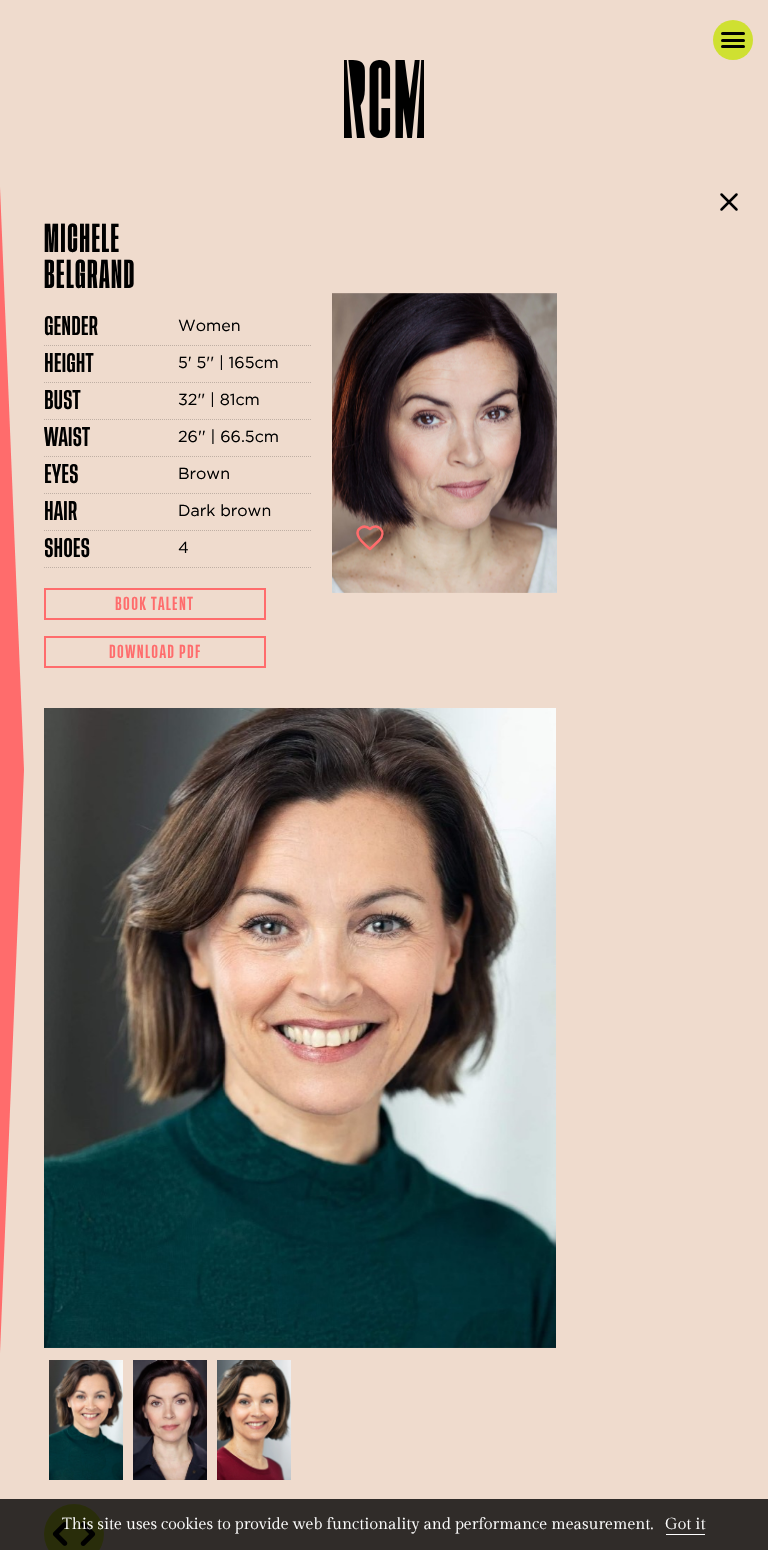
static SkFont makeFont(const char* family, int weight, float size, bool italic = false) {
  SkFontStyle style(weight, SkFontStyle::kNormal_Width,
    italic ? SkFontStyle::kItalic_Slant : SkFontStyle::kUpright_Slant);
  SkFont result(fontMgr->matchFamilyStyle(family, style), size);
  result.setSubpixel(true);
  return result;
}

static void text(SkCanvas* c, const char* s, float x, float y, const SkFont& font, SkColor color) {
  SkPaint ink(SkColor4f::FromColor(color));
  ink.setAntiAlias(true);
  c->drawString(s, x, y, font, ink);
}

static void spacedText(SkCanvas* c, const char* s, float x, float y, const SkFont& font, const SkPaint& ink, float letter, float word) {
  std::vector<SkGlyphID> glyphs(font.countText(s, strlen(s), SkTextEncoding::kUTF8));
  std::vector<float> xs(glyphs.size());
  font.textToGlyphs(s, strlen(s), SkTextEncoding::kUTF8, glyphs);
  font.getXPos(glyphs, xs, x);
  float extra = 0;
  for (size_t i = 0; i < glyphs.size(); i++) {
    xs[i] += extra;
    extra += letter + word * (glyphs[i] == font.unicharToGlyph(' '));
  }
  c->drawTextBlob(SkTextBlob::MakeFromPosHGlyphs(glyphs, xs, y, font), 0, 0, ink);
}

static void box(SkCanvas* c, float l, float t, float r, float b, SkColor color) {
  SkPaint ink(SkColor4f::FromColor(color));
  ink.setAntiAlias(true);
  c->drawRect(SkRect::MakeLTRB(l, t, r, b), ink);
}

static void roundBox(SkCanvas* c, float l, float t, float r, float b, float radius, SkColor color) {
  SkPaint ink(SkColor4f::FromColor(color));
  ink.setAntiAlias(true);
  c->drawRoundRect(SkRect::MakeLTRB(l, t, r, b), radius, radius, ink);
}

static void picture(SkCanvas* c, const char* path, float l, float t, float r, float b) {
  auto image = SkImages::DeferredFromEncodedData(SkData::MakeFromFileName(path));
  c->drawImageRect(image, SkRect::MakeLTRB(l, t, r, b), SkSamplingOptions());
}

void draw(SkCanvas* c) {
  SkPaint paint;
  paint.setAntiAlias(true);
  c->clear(0xffefdbcd);
  paint.setColor(0xffcfe031);
  c->drawCircle(733, 40, 20, paint);
  roundBox(c, 721, 32, 745, 35, 1.5f, 0xff000000);
  roundBox(c, 721, 39, 745, 42, 1.5f, 0xff000000);
  roundBox(c, 721, 45, 745, 48, 1.5f, 0xff000000);
  picture(c, "img_01.png", 344, 60, 424, 138);
  box(c, 0, 1499, 768, 1550, 0xff302c29);
  paint.setColor(0xffff6c6c);
  c->drawPath(SkPathBuilder().moveTo(24, 770).lineTo(0, 1353).lineTo(0, 187).close().detach(), paint);
  paint.setStyle(SkPaint::kStroke_Style);
  paint.setStrokeWidth(2.5f);
  paint.setStrokeCap(SkPaint::kRound_Cap);
  paint.setStrokeJoin(SkPaint::kRound_Join);
  paint.setColor(0xff000000);
  c->drawPath(SkPathBuilder().moveTo(736.5f, 194.5f).lineTo(721.5f, 209.5f).moveTo(721.5f, 194.5f).lineTo(736.5f, 209.5f).detach(), paint);
  SkFont face1 = makeFont("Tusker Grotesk", 700, 30);
  paint.setStyle(SkPaint::kFill_Style);
  spacedText(c, "MICHELE", 44, 252, face1, paint, 1.5f, 0);
  spacedText(c, "BELGRAND", 44, 288, face1, paint, 1.5f, 0);
  paint.setStyle(SkPaint::kStroke_Style);
  paint.setStrokeWidth(1);
  paint.setStrokeCap(SkPaint::kButt_Cap);
  paint.setStrokeJoin(SkPaint::kMiter_Join);
  paint.setColor(0xffbfafa4);
  paint.setPathEffect(SkDashPathEffect::Make({{1, 1}}, 0));
  c->drawPath(SkPathBuilder().moveTo(44, 345.5f).lineTo(312, 345.5f).detach(), paint);
  paint.setPathEffect(nullptr);
  SkFont face2 = makeFont("Tusker Grotesk", 500, 20);
  text(c, "GENDER", 44, 335, face2, 0xff000000);
  SkFont face3 = makeFont("Gotham", 400, 16);
  text(c, "Women", 178, 331, face3, 0xff000000);
  paint.setPathEffect(SkDashPathEffect::Make({{1, 1}}, 0));
  c->drawPath(SkPathBuilder().moveTo(44, 382.5f).lineTo(312, 382.5f).detach(), paint);
  paint.setPathEffect(nullptr);
  text(c, "HEIGHT", 44, 372, face2, 0xff000000);
  text(c, "5' 5'' | 165cm", 178, 368, face3, 0xff000000);
  paint.setPathEffect(SkDashPathEffect::Make({{1, 1}}, 0));
  c->drawPath(SkPathBuilder().moveTo(44, 419.5f).lineTo(312, 419.5f).detach(), paint);
  paint.setPathEffect(nullptr);
  text(c, "BUST", 44, 409, face2, 0xff000000);
  text(c, "32'' | 81cm", 178, 405, face3, 0xff000000);
  paint.setPathEffect(SkDashPathEffect::Make({{1, 1}}, 0));
  c->drawPath(SkPathBuilder().moveTo(44, 456.5f).lineTo(312, 456.5f).detach(), paint);
  paint.setPathEffect(nullptr);
  text(c, "WAIST", 44, 446, face2, 0xff000000);
  text(c, "26'' | 66.5cm", 178, 442, face3, 0xff000000);
  paint.setPathEffect(SkDashPathEffect::Make({{1, 1}}, 0));
  c->drawPath(SkPathBuilder().moveTo(44, 493.5f).lineTo(312, 493.5f).detach(), paint);
  paint.setPathEffect(nullptr);
  text(c, "EYES", 44, 483, face2, 0xff000000);
  text(c, "Brown", 178, 479, face3, 0xff000000);
  paint.setPathEffect(SkDashPathEffect::Make({{1, 1}}, 0));
  c->drawPath(SkPathBuilder().moveTo(44, 530.5f).lineTo(312, 530.5f).detach(), paint);
  paint.setPathEffect(nullptr);
  text(c, "HAIR", 44, 520, face2, 0xff000000);
  text(c, "Dark brown", 178, 516, face3, 0xff000000);
  paint.setPathEffect(SkDashPathEffect::Make({{1, 1}}, 0));
  c->drawPath(SkPathBuilder().moveTo(44, 567.5f).lineTo(312, 567.5f).detach(), paint);
  paint.setPathEffect(nullptr);
  text(c, "SHOES", 44, 557, face2, 0xff000000);
  text(c, "4", 178, 553, face3, 0xff000000);
  paint.setStrokeWidth(2);
  paint.setColor(0xffff6c6c);
  c->drawRect(SkRect::MakeLTRB(45, 589, 265, 619), paint);
  SkFont face4 = makeFont("Tusker Grotesk", 500, 14);
  paint.setStyle(SkPaint::kFill_Style);
  spacedText(c, "BOOK TALENT", 115, 610, face4, paint, 1.4f, 0);
  paint.setStyle(SkPaint::kStroke_Style);
  c->drawRect(SkRect::MakeLTRB(45, 637, 265, 667), paint);
  paint.setStyle(SkPaint::kFill_Style);
  spacedText(c, "DOWNLOAD PDF", 109, 658, face4, paint, 1.4f, 0);
  picture(c, "img_02.png", 332, 293, 557, 593);
  paint.setStyle(SkPaint::kStroke_Style);
  paint.setStrokeWidth(2.5f);
  paint.setStrokeCap(SkPaint::kRound_Cap);
  paint.setStrokeJoin(SkPaint::kRound_Join);
  c->drawPath(SkPathBuilder().moveTo(379, 540.5f).cubicTo(388, 531.5f, 377, 522, 370, 529).cubicTo(364.5f, 524, 355.5f, 528, 358, 535.5f).cubicTo(359, 539.5f, 367, 546.5f, 370, 549).close().detach(), paint);
  picture(c, "img_03.png", 44, 708, 556, 1348);
  picture(c, "img_04.png", 49, 1360, 123, 1480);
  picture(c, "img_05.png", 133, 1360, 207, 1480);
  picture(c, "img_06.png", 217, 1360, 291, 1480);
  paint.setStyle(SkPaint::kFill_Style);
  paint.setColor(0xff292d0a);
  c->drawCircle(74, 1534, 30, paint);
  picture(c, "img_07.png", 52, 1522, 68, 1546);
  picture(c, "img_08.png", 80, 1522, 96, 1546);
  SkFont face5 = makeFont("Gilda Display", 400, 16);
  text(c, "This site uses cookies to provide web functionality and performance measurement.", 62, 1529, face5, 0xffffffff);
  text(c, "Got it", 665, 1529, face5, 0xffffffff);
  box(c, 666, 1534, 705, 1535, 0xffffffff);
}
